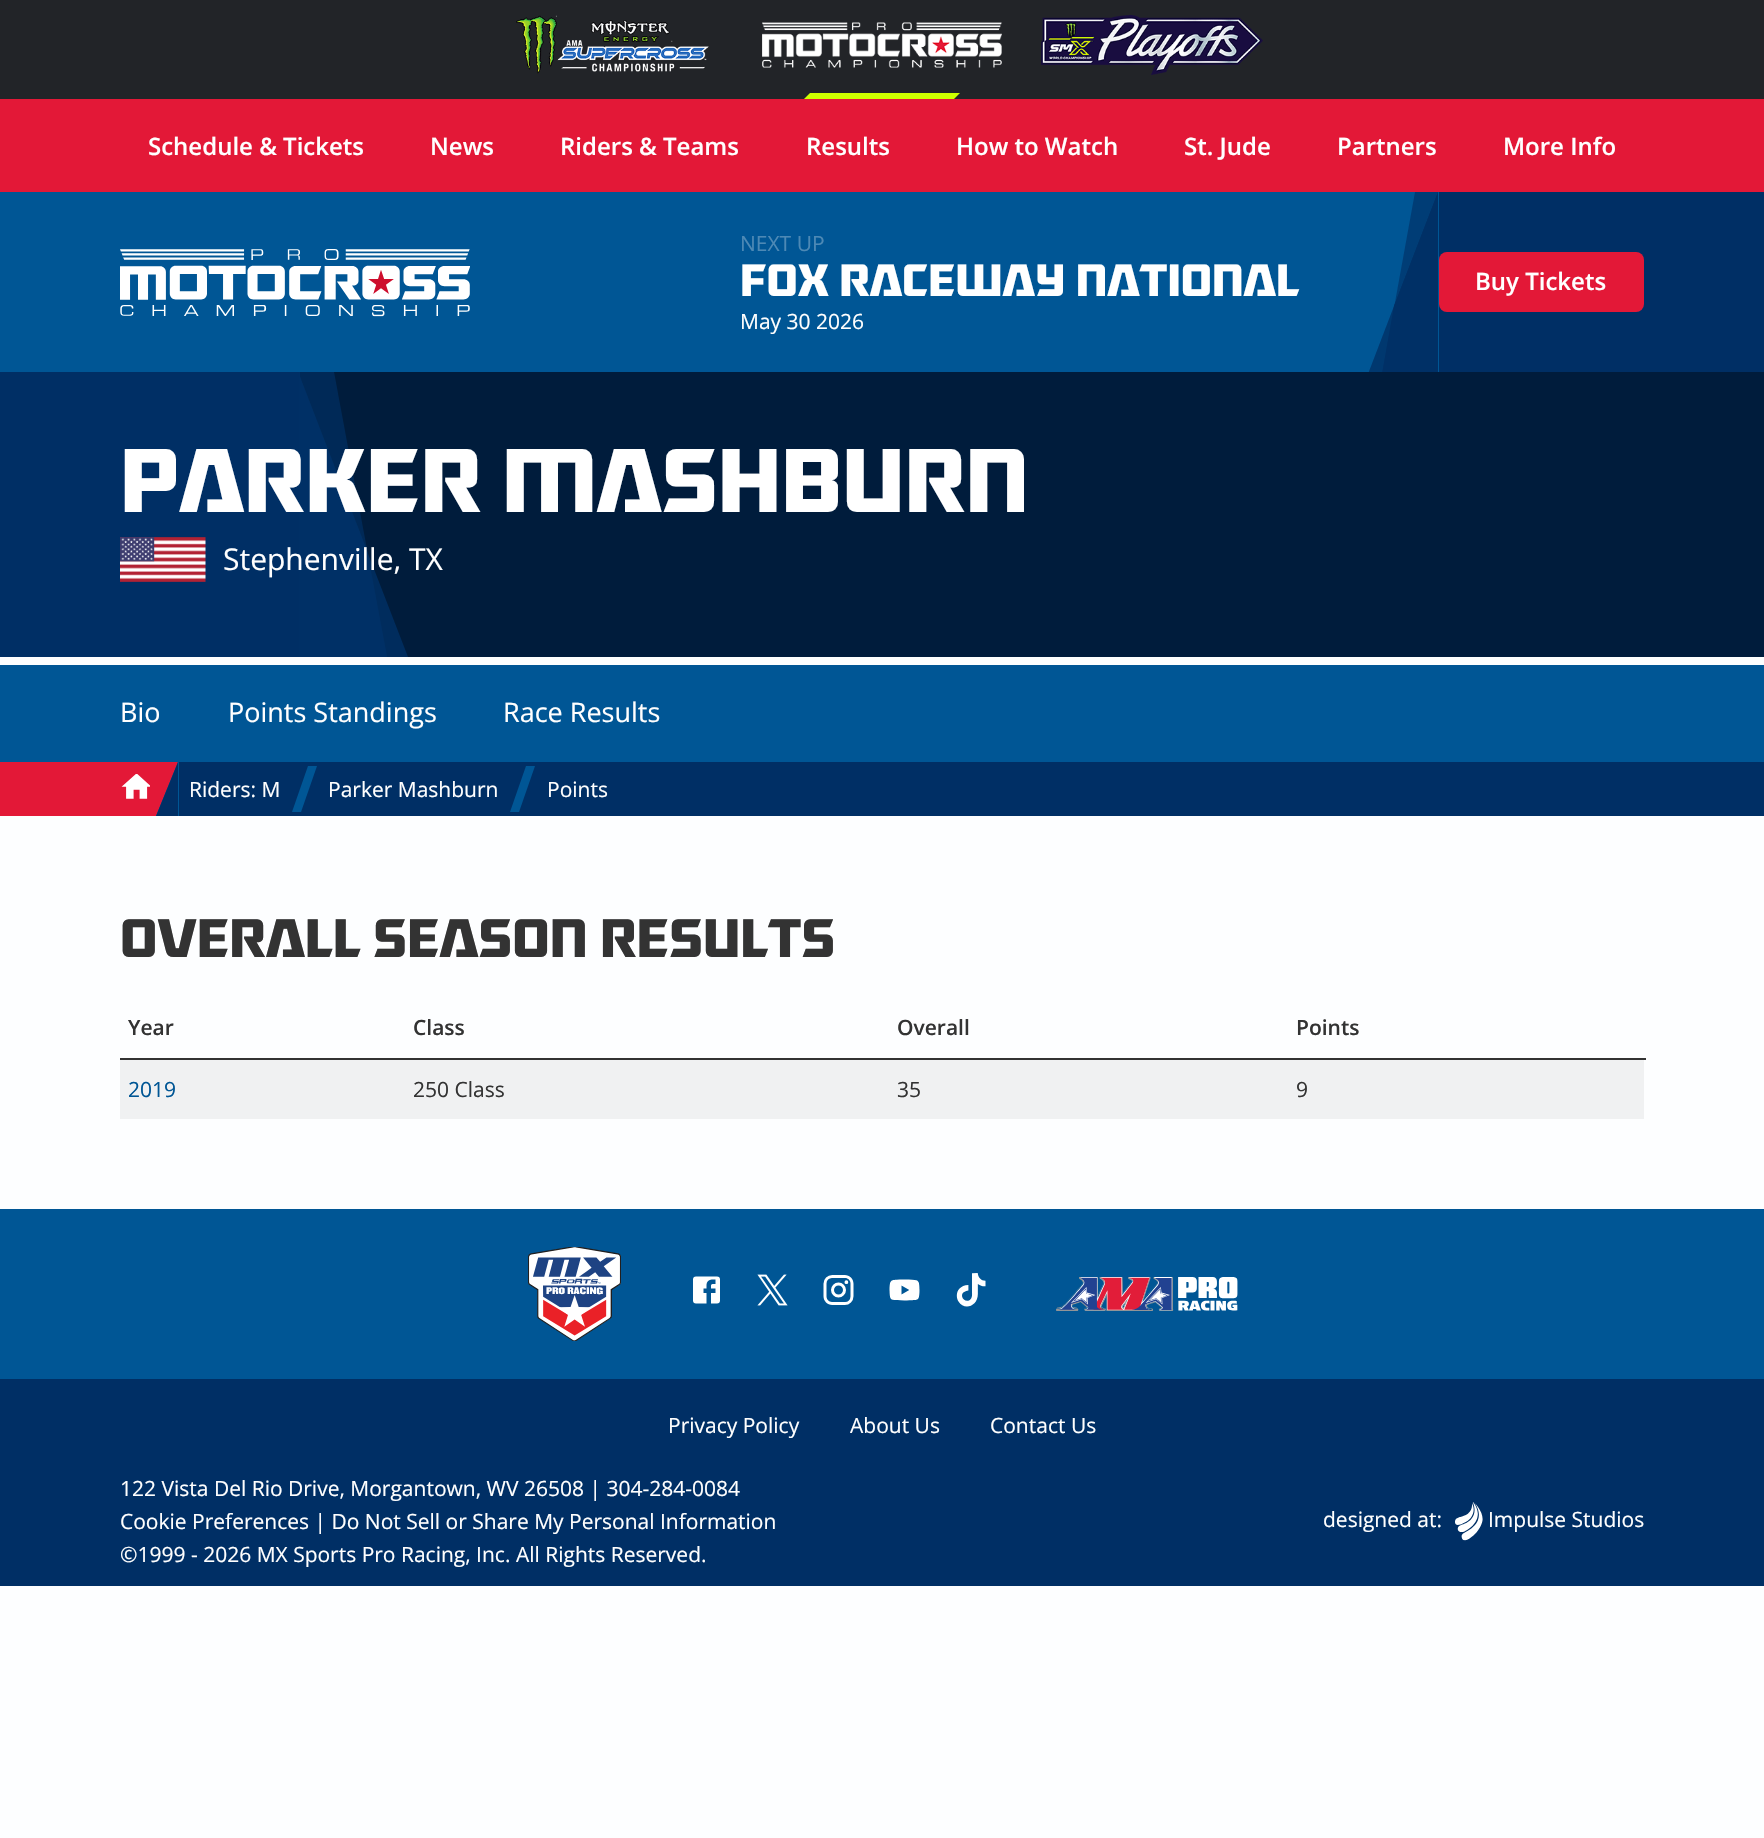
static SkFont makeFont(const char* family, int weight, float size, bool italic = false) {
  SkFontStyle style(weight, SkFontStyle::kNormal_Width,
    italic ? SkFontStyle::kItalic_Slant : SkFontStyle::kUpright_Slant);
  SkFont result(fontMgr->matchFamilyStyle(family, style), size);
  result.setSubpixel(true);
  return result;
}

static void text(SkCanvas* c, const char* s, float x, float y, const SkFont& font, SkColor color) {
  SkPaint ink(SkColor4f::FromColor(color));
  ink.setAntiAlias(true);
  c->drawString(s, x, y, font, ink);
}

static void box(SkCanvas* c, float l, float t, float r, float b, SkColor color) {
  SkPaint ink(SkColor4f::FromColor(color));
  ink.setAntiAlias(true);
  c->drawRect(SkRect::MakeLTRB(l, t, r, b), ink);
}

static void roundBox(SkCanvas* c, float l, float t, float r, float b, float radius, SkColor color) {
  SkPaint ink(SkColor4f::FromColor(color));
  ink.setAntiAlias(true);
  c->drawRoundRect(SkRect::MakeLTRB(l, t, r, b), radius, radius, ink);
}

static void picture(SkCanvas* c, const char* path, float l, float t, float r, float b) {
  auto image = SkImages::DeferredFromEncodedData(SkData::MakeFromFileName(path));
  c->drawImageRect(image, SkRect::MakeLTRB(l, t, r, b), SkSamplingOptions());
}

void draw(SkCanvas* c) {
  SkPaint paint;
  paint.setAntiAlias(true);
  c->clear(0xfffdfeff);
  box(c, 0, 0, 1764, 99, 0xff222428);
  picture(c, "img_01.png", 516, 15, 709, 74);
  picture(c, "img_02.png", 762, 22, 1002, 68);
  paint.setColor(0xffceff00);
  c->drawPath(SkPathBuilder().moveTo(810, 93).lineTo(960, 93).lineTo(954, 99).lineTo(804, 99).close().detach(), paint);
  picture(c, "img_03.png", 1041, 15, 1263, 75);
  box(c, 0, 99, 1764, 192, 0xffe31837);
  SkFont face1 = makeFont("Open Sans", 600, 24);
  text(c, "Schedule & Tickets", 148, 155, face1, 0xffffffff);
  text(c, "News", 430, 155, face1, 0xffffffff);
  text(c, "Riders & Teams", 560, 155, face1, 0xffffffff);
  text(c, "Results", 806, 155, face1, 0xffffffff);
  text(c, "How to Watch", 956, 155, face1, 0xffffffff);
  text(c, "St. Jude", 1184, 155, face1, 0xffffffff);
  text(c, "Partners", 1337, 155, face1, 0xffffffff);
  text(c, "More Info", 1503, 155, face1, 0xffffffff);
  box(c, 0, 192, 1439, 372, 0xff005695);
  picture(c, "img_04.png", 120, 249, 470, 317);
  SkFont face2 = makeFont("Open Sans", 400, 21);
  text(c, "NEXT UP", 740, 251, face2, 0xff4d89b5);
  SkFont face3 = makeFont("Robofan", 700, 45);
  text(c, "FOX RACEWAY NATIONAL", 740, 296, face3, 0xffffffff);
  text(c, "May 30 2026", 740, 329, face2, 0xffffffff);
  box(c, 1439, 192, 1764, 372, 0xff002f65);
  c->save();
  c->clipRect(SkRect::MakeLTRB(1368, 192, 1439, 372));
  paint.setColor(0xff002f65);
  c->drawPath(SkPathBuilder().moveTo(1438, 374).lineTo(1438, 192).lineTo(1394, 306).lineTo(1382, 374).close().detach(), paint);
  paint.setColor(0xa6002f65);
  c->drawPath(SkPathBuilder().moveTo(1415, 192).lineTo(1382, 374).lineTo(1438, 374).lineTo(1438, 192).close().detach(), paint);
  paint.setColor(0xcc002f65);
  c->drawPath(SkPathBuilder().moveTo(1394, 306).lineTo(1368, 374).lineTo(1438, 374).lineTo(1438, 192).close().detach(), paint);
  c->restore();
  roundBox(c, 1439, 252, 1644, 312, 8, 0xffe31837);
  text(c, "Buy Tickets", 1475, 290, face1, 0xffffffff);
  box(c, 300, 372, 1764, 657, 0xff001c3c);
  box(c, 0, 372, 300, 657, 0xff002f65);
  c->save();
  c->clipRect(SkRect::MakeLTRB(299, 372, 408, 657));
  paint.setColor(0xff002f65);
  c->drawPath(SkPathBuilder().moveTo(298, 657).lineTo(298, 372).lineTo(367, 551).lineTo(387, 657).close().detach(), paint);
  paint.setColor(0xa6002f65);
  c->drawPath(SkPathBuilder().moveTo(334, 372).lineTo(387, 657).lineTo(298, 657).lineTo(298, 372).close().detach(), paint);
  paint.setColor(0xcc002f65);
  c->drawPath(SkPathBuilder().moveTo(367, 551).lineTo(408, 657).lineTo(298, 657).lineTo(298, 372).close().detach(), paint);
  c->restore();
  SkFont face4 = makeFont("Robofan", 700, 90);
  text(c, "PARKER MASHBURN", 120, 512, face4, 0xffffffff);
  picture(c, "img_05.png", 120, 537, 206, 582);
  SkFont face5 = makeFont("Open Sans", 400, 30);
  text(c, "Stephenville, TX", 223, 570, face5, 0xffffffff);
  box(c, 0, 665, 1764, 762, 0xff005695);
  SkFont face6 = makeFont("Open Sans", 400, 27);
  text(c, "Bio", 120, 722, face6, 0xffffffff);
  text(c, "Points Standings", 228, 722, face6, 0xffffffff);
  text(c, "Race Results", 503, 722, face6, 0xffffffff);
  box(c, 179, 762, 1764, 816, 0xff002f65);
  box(c, 0, 762, 156, 816, 0xffe31837);
  box(c, 156, 762, 179, 816, 0xff005695);
  paint.setColor(0xffe31837);
  c->drawPath(SkPathBuilder().moveTo(156, 762).lineTo(178, 762).lineTo(156, 816).close().detach(), paint);
  paint.setColor(0xff002f65);
  c->drawPath(SkPathBuilder().moveTo(178, 762).lineTo(178, 816).lineTo(156, 816).close().detach(), paint);
  picture(c, "img_06.png", 121, 774, 150, 799);
  text(c, "Riders: M", 189, 797, face2, 0xffffffff);
  paint.setColor(0xff005695);
  c->drawPath(SkPathBuilder().moveTo(308, 766).lineTo(317, 766).lineTo(301, 812).lineTo(292, 812).close().detach(), paint);
  text(c, "Parker Mashburn", 328, 797, face2, 0xffffffff);
  c->drawPath(SkPathBuilder().moveTo(526, 766).lineTo(535, 766).lineTo(519, 812).lineTo(510, 812).close().detach(), paint);
  text(c, "Points", 547, 797, face2, 0xffffffff);
  SkFont face7 = makeFont("Robofan", 700, 54);
  text(c, "OVERALL SEASON RESULTS", 120, 957, face7, 0xff333333);
  SkFont face8 = makeFont("Open Sans", 600, 21);
  text(c, "Year", 128, 1035, face8, 0xff333333);
  text(c, "Class", 413, 1035, face8, 0xff333333);
  text(c, "Overall", 897, 1035, face8, 0xff333333);
  box(c, 120, 1058, 1646, 1060, 0xff333333);
  text(c, "Points", 1296, 1035, face8, 0xff333333);
  box(c, 120, 1060, 1644, 1119, 0xfff0f1f2);
  text(c, "2019", 128, 1097, face2, 0xff005695);
  text(c, "250 Class", 413, 1097, face2, 0xff333333);
  text(c, "35", 897, 1097, face2, 0xff333333);
  text(c, "9", 1296, 1097, face2, 0xff333333);
  box(c, 0, 1209, 1764, 1379, 0xff005695);
  picture(c, "img_07.png", 528, 1247, 621, 1341);
  picture(c, "img_08.png", 693, 1276, 720, 1304);
  picture(c, "img_09.png", 757, 1274, 788, 1306);
  picture(c, "img_10.png", 823, 1275, 854, 1305);
  picture(c, "img_11.png", 889, 1279, 920, 1301);
  picture(c, "img_12.png", 956, 1273, 986, 1307);
  picture(c, "img_13.png", 1056, 1277, 1238, 1311);
  box(c, 0, 1379, 1764, 1586, 0xff002f65);
  text(c, "Privacy Policy", 668, 1433, face2, 0xffffffff);
  text(c, "About Us", 850, 1433, face2, 0xffffffff);
  text(c, "Contact Us", 990, 1433, face2, 0xffffffff);
  text(c, "122 Vista Del Rio Drive, Morgantown, WV 26508 | 304-284-0084", 120, 1496, face2, 0xffffffff);
  text(c, "Cookie Preferences | Do Not Sell or Share My Personal Information", 120, 1529, face2, 0xffffffff);
  text(c, "©1999 - 2026 MX Sports Pro Racing, Inc. All Rights Reserved.", 120, 1562, face2, 0xffffffff);
  text(c, "designed at:", 1323, 1527, face2, 0xffffffff);
  picture(c, "img_14.png", 1455, 1502, 1483, 1541);
  text(c, "Impulse Studios", 1488, 1527, face2, 0xffffffff);
}
